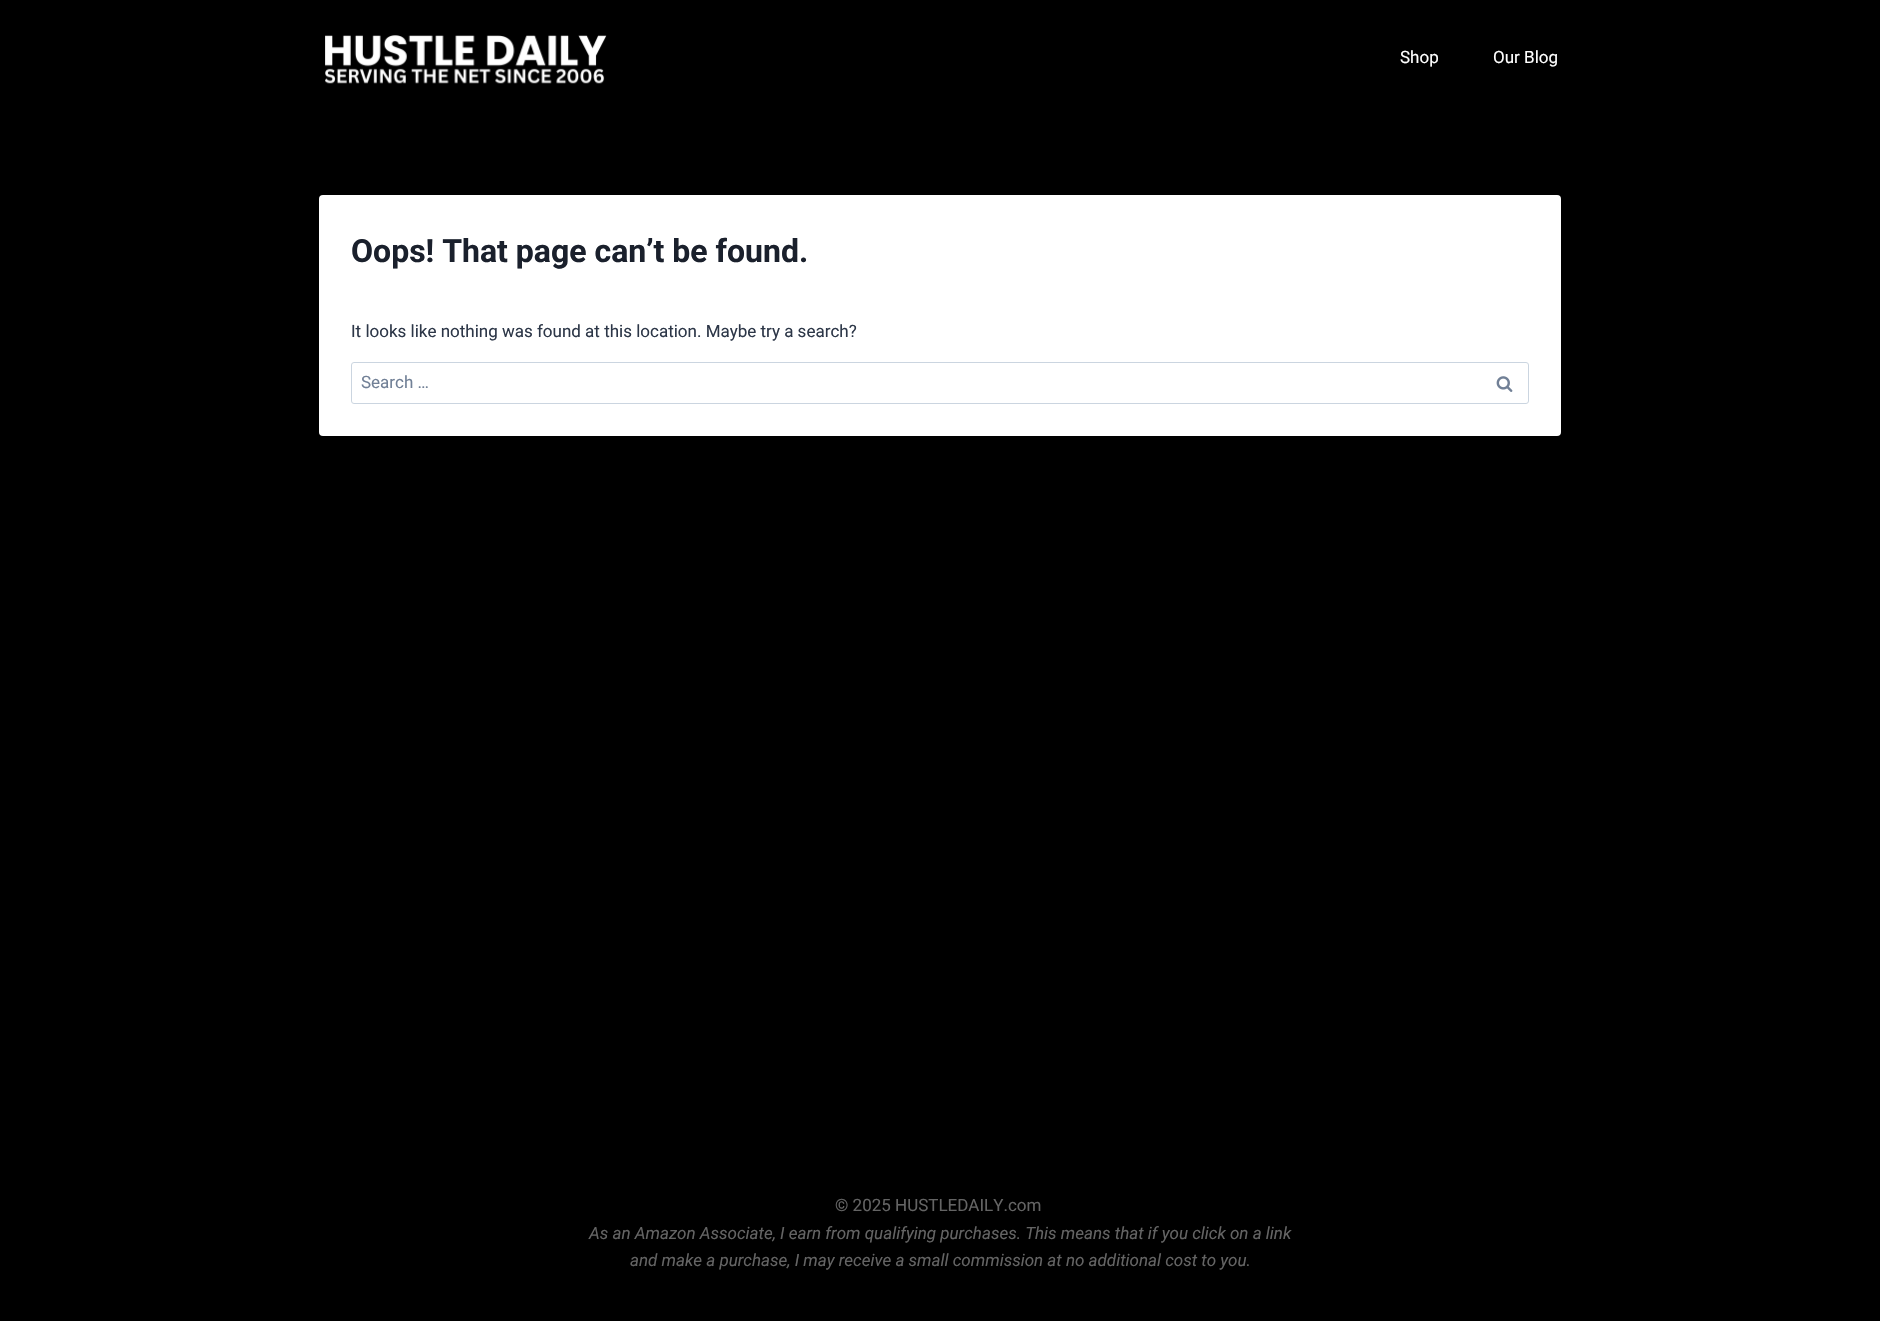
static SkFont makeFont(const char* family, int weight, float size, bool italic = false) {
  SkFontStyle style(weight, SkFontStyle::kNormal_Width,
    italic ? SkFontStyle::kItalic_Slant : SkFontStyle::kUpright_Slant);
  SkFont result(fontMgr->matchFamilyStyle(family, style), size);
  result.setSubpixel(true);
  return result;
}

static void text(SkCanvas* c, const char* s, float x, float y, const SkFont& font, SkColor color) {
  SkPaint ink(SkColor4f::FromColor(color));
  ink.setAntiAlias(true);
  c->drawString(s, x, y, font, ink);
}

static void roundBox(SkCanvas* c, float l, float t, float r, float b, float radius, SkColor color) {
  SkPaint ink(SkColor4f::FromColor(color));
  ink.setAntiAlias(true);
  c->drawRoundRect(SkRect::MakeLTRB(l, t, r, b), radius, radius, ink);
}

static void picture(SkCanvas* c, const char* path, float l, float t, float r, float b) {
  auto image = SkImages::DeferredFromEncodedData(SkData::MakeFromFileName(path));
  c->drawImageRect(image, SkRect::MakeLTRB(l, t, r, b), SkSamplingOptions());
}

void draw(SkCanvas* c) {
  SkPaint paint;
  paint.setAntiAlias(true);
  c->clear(0xff000000);
  picture(c, "img_01.png", 325, 35, 607, 84);
  SkFont face1 = makeFont("Roboto", 400, 17);
  text(c, "Shop", 1400, 63, face1, 0xffffffff);
  text(c, "Our Blog", 1493, 63, face1, 0xffffffff);
  roundBox(c, 319, 195, 1561, 436, 4, 0xffffffff);
  SkFont face2 = makeFont("Roboto", 700, 32);
  text(c, "Oops! That page can’t be found.", 351, 262, face2, 0xff1a202c);
  text(c, "It looks like nothing was found at this location. Maybe try a search?", 351, 337, face1, 0xff2d3748);
  paint.setStyle(SkPaint::kStroke_Style);
  paint.setStrokeWidth(1);
  paint.setColor(0xffcbd5e0);
  c->drawRoundRect(SkRect::MakeLTRB(351.5f, 362.5f, 1528.5f, 403.5f), 2.5f, 2.5f, paint);
  text(c, "Search …", 361, 388, face1, 0xff718096);
  picture(c, "img_02.png", 1496, 376, 1513, 392);
  text(c, "© 2025 HUSTLEDAILY.com", 835, 1211, face1, 0xff646464);
  SkFont face3 = makeFont("Roboto", 400, 17, true);
  text(c, "As an Amazon Associate, I earn from qualifying purchases. This means that if you click on a link", 589, 1239, face3, 0xff646464);
  text(c, "and make a purchase, I may receive a small commission at no additional cost to you.", 630, 1266, face3, 0xff646464);
}
